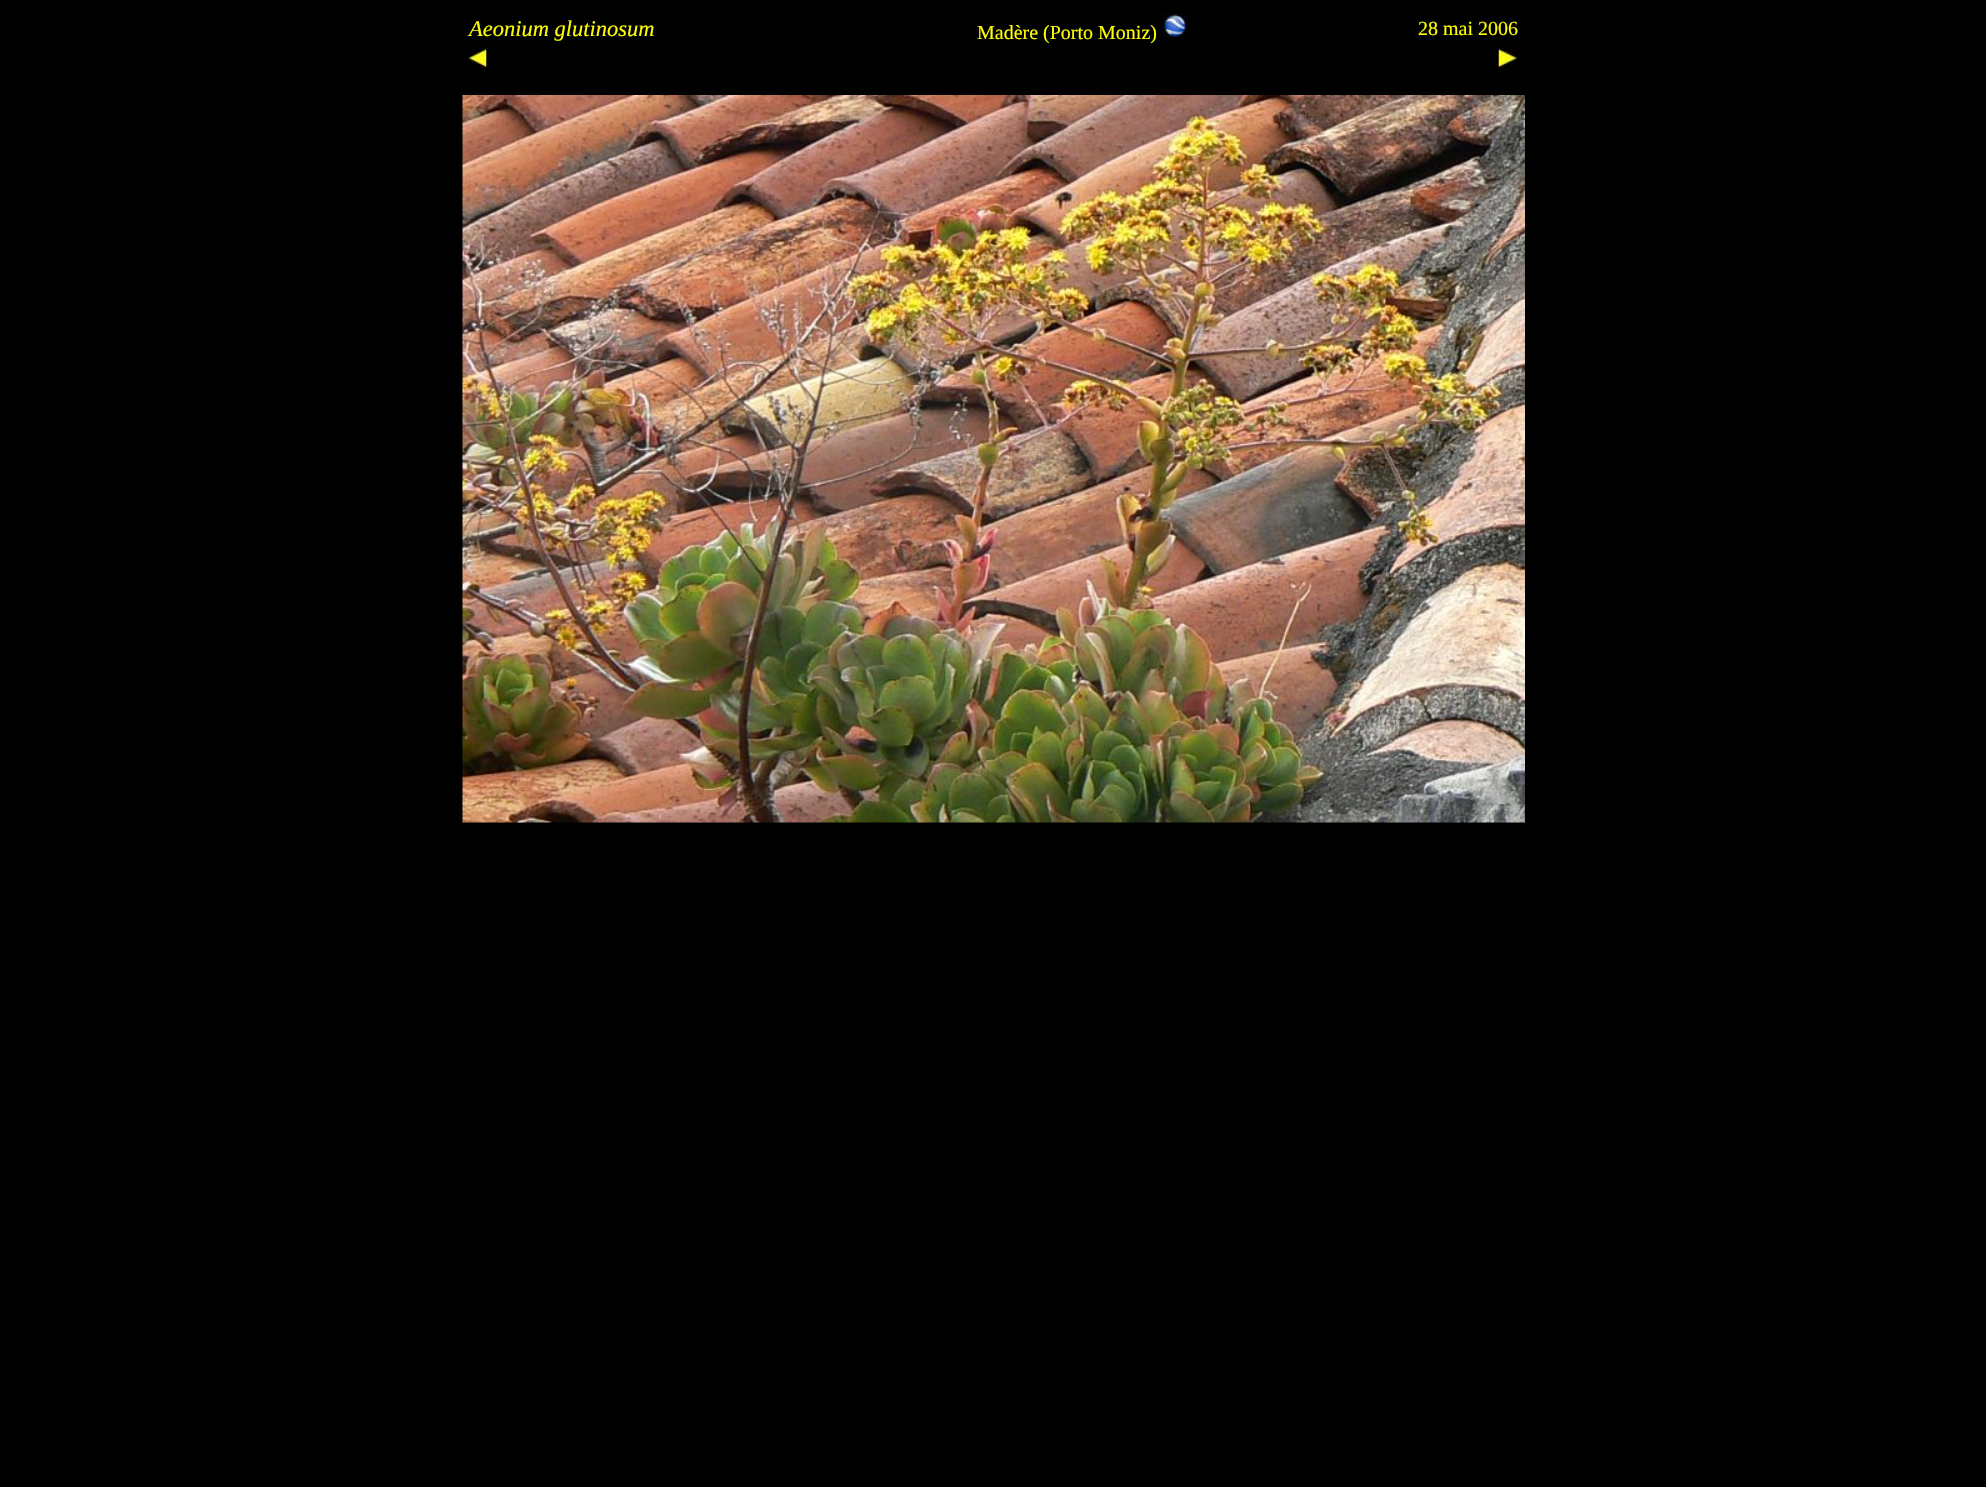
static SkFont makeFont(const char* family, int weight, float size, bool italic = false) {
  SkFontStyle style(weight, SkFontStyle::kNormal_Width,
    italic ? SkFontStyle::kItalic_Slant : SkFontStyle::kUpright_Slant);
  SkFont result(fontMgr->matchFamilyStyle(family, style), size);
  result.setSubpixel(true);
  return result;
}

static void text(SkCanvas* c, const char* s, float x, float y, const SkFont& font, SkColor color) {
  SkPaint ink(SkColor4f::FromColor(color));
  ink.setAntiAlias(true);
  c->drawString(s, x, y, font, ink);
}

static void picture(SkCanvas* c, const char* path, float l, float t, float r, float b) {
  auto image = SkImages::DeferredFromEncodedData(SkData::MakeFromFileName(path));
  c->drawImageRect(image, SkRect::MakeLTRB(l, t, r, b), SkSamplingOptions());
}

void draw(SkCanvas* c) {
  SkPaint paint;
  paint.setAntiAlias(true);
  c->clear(0xff000000);
  SkFont face1 = makeFont("Liberation Serif", 400, 22.5f, true);
  text(c, "Aeonium glutinosum", 469, 36, face1, 0xffffff00);
  SkFont face2 = makeFont("Liberation Serif", 400, 20);
  text(c, "Madère (Porto Moniz)", 977, 39, face2, 0xffffff00);
  picture(c, "img_01.png", 1162, 13, 1188, 39);
  text(c, "28 mai 2006", 1418, 35, face2, 0xffffff00);
  picture(c, "img_02.png", 468, 48, 487, 68);
  picture(c, "img_03.png", 1498, 48, 1518, 68);
  picture(c, "img_04.png", 462, 95, 1525, 823);
}
